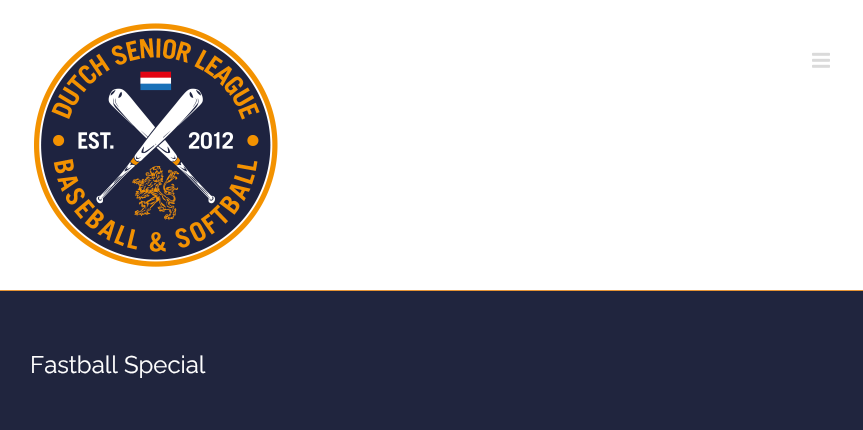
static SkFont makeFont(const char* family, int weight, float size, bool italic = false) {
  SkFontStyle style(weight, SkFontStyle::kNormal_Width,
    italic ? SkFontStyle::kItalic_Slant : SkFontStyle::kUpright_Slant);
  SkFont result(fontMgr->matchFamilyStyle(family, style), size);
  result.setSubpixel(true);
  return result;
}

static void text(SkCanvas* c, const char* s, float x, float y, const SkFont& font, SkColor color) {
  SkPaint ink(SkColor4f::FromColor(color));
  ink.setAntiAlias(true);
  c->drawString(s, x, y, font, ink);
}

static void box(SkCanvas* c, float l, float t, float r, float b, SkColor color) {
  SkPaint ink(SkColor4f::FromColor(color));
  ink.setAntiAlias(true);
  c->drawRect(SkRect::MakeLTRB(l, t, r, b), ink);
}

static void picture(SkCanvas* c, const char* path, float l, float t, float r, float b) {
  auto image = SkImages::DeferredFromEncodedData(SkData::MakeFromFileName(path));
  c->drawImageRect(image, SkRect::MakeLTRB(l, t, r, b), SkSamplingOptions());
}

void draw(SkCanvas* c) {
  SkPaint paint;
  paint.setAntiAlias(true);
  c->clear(0xffffffff);
  picture(c, "img_01.png", 34, 23, 278, 267);
  picture(c, "img_02.png", 812, 52, 830, 68);
  box(c, 0, 291, 863, 430, 0xff20253e);
  box(c, 0, 290, 863, 291, 0xffe59435);
  SkFont face1 = makeFont("Raleway", 400, 24);
  text(c, "Fastball Special", 30, 373, face1, 0xffffffff);
}
